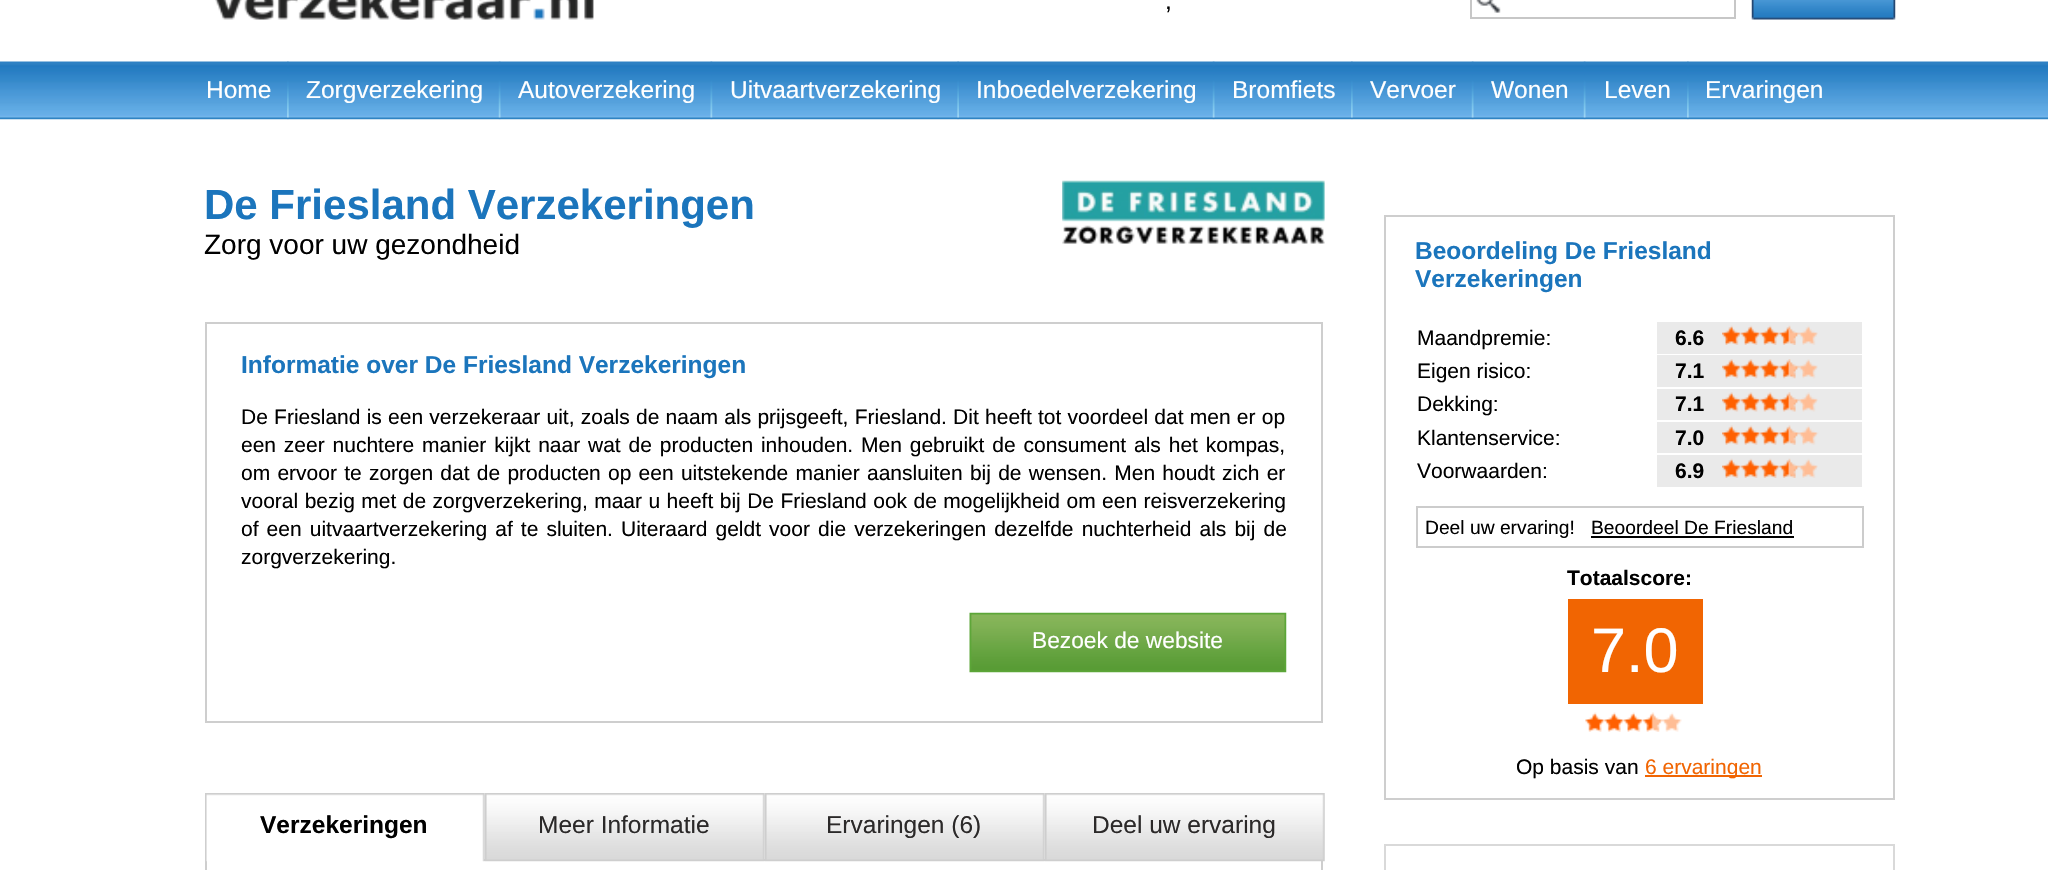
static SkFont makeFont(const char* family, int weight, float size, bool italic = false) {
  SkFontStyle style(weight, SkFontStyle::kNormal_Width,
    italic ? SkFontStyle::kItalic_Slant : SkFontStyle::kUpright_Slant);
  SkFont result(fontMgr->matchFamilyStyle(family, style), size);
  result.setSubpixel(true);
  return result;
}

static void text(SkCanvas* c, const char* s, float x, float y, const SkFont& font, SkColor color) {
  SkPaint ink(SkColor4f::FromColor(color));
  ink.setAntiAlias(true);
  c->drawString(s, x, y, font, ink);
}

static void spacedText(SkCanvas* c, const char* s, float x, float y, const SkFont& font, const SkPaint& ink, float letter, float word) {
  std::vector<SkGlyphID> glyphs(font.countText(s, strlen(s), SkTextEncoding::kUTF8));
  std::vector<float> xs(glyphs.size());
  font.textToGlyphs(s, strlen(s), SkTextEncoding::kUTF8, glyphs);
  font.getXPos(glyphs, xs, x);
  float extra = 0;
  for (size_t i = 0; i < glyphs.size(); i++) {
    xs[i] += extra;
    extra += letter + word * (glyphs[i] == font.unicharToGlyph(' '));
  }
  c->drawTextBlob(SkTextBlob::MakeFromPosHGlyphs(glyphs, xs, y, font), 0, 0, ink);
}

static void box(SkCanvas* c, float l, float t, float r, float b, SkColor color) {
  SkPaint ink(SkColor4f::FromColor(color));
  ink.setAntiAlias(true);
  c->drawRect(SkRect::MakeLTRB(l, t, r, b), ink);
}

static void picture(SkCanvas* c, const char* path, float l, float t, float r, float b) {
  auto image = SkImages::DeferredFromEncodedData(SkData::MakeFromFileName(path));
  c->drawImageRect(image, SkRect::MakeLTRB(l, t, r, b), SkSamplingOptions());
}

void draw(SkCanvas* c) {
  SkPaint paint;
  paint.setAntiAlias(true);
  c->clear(0xffffffff);
  picture(c, "img_01.png", 0, 61, 2048, 120);
  picture(c, "img_02.png", 215, 0, 594, 20);
  SkFont face1 = makeFont("Liberation Sans", 400, 24.5f);
  text(c, ",", 1165, 9, face1, 0xff000000);
  picture(c, "img_03.png", 1476, 0, 1501, 13);
  paint.setStyle(SkPaint::kStroke_Style);
  paint.setStrokeWidth(2);
  paint.setColor(0xffc7c7c7);
  c->drawRect(SkRect::MakeLTRB(1471, -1, 1735, 18), paint);
  picture(c, "img_04.png", 1751, 0, 1896, 20);
  picture(c, "img_05.png", 287, 61, 289, 120);
  text(c, "Home", 206, 98, face1, 0xffffffff);
  picture(c, "img_06.png", 498, 61, 501, 120);
  text(c, "Zorgverzekering", 306, 98, face1, 0xffffffff);
  picture(c, "img_07.png", 710, 61, 713, 120);
  text(c, "Autoverzekering", 518, 98, face1, 0xffffffff);
  picture(c, "img_08.png", 957, 61, 959, 120);
  text(c, "Uitvaartverzekering", 730, 98, face1, 0xffffffff);
  picture(c, "img_06.png", 1212, 61, 1215, 120);
  text(c, "Inboedelverzekering", 976, 98, face1, 0xffffffff);
  picture(c, "img_05.png", 1351, 61, 1353, 120);
  text(c, "Bromfiets", 1232, 98, face1, 0xffffffff);
  picture(c, "img_06.png", 1471, 61, 1474, 120);
  text(c, "Vervoer", 1370, 98, face1, 0xffffffff);
  picture(c, "img_06.png", 1583, 61, 1586, 120);
  text(c, "Wonen", 1491, 98, face1, 0xffffffff);
  picture(c, "img_05.png", 1687, 61, 1689, 120);
  text(c, "Leven", 1604, 98, face1, 0xffffffff);
  text(c, "Ervaringen", 1705, 98, face1, 0xffffffff);
  SkFont face2 = makeFont("Liberation Sans", 700, 42);
  text(c, "De Friesland Verzekeringen", 204, 219, face2, 0xff1b75bc);
  picture(c, "img_09.png", 1062, 180, 1325, 244);
  SkFont face3 = makeFont("Liberation Sans", 400, 28);
  text(c, "Zorg voor uw gezondheid", 204, 254, face3, 0xff000000);
  paint.setColor(0xffcecece);
  c->drawRect(SkRect::MakeLTRB(206, 323, 1322, 722), paint);
  SkFont face4 = makeFont("Liberation Sans", 700, 24.5f);
  text(c, "Informatie over De Friesland Verzekeringen", 241, 373, face4, 0xff1b75bc);
  SkFont face5 = makeFont("Liberation Sans", 400, 21);
  paint.setStyle(SkPaint::kFill_Style);
  paint.setColor(0xff000000);
  spacedText(c, "De Friesland is een verzekeraar uit, zoals de naam als prijsgeeft, Friesland. Dit heeft tot voordeel dat men er op", 241, 424, face5, paint, 0, 0.4f);
  spacedText(c, "een zeer nuchtere manier kijkt naar wat de producten inhouden. Men gebruikt de consument als het kompas,", 241, 452, face5, paint, 0, 2);
  spacedText(c, "om ervoor te zorgen dat de producten op een uitstekende manier aansluiten bij de wensen. Men houdt zich er", 241, 480, face5, paint, 0, 1.4f);
  spacedText(c, "vooral bezig met de zorgverzekering, maar u heeft bij De Friesland ook de mogelijkheid om een reisverzekering", 241, 508, face5, paint, 0, 0.6f);
  spacedText(c, "of een uitvaartverzekering af te sluiten. Uiteraard geldt voor die verzekeringen dezelfde nuchterheid als bij de", 241, 536, face5, paint, 0, 2.25f);
  text(c, "zorgverzekering.", 241, 564, face5, 0xff000000);
  picture(c, "img_10.png", 969, 612, 1287, 673);
  SkFont face6 = makeFont("Liberation Sans", 400, 22.75f);
  text(c, "Bezoek de website", 1032, 648, face6, 0xffffffff);
  paint.setStyle(SkPaint::kStroke_Style);
  paint.setColor(0xffcecece);
  c->drawRect(SkRect::MakeLTRB(206, 860, 1322, 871), paint);
  picture(c, "img_11.png", 205, 793, 485, 862);
  text(c, "Verzekeringen", 260, 833, face4, 0xff000000);
  picture(c, "img_12.png", 485, 793, 765, 862);
  text(c, "Meer Informatie", 538, 833, face1, 0xff2b2929);
  picture(c, "img_12.png", 765, 793, 1045, 862);
  text(c, "Ervaringen (6)", 826, 833, face1, 0xff2b2929);
  picture(c, "img_13.png", 1045, 793, 1325, 862);
  text(c, "Deel uw ervaring", 1092, 833, face1, 0xff2b2929);
  c->drawRect(SkRect::MakeLTRB(1385, 216, 1894, 799), paint);
  text(c, "Beoordeling De Friesland", 1415, 259, face4, 0xff1b75bc);
  text(c, "Verzekeringen", 1415, 287, face4, 0xff1b75bc);
  text(c, "Maandpremie:", 1417, 345, face5, 0xff000000);
  box(c, 1657, 322, 1862, 354, 0xffeaeaea);
  SkFont face7 = makeFont("Liberation Sans", 700, 21);
  text(c, "6.6", 1675, 345, face7, 0xff000000);
  picture(c, "img_14.png", 1722, 325, 1818, 345);
  text(c, "Eigen risico:", 1417, 378, face5, 0xff000000);
  box(c, 1657, 355, 1862, 387, 0xffeaeaea);
  text(c, "7.1", 1675, 378, face7, 0xff000000);
  picture(c, "img_15.png", 1722, 359, 1818, 379);
  text(c, "Dekking:", 1417, 411, face5, 0xff000000);
  box(c, 1657, 389, 1862, 420, 0xffeaeaea);
  text(c, "7.1", 1675, 411, face7, 0xff000000);
  picture(c, "img_16.png", 1722, 392, 1818, 412);
  text(c, "Klantenservice:", 1417, 445, face5, 0xff000000);
  box(c, 1657, 422, 1862, 453, 0xffeaeaea);
  text(c, "7.0", 1675, 445, face7, 0xff000000);
  picture(c, "img_17.png", 1722, 425, 1819, 445);
  text(c, "Voorwaarden:", 1417, 478, face5, 0xff000000);
  box(c, 1657, 455, 1862, 487, 0xffeaeaea);
  text(c, "6.9", 1675, 478, face7, 0xff000000);
  picture(c, "img_14.png", 1722, 458, 1818, 478);
  paint.setColor(0xffcccccc);
  c->drawRect(SkRect::MakeLTRB(1417, 507, 1863, 547), paint);
  SkFont face8 = makeFont("Liberation Sans", 400, 19.25f);
  text(c, "Deel uw ervaring!", 1425, 534, face8, 0xff000000);
  text(c, "Beoordeel De Friesland", 1591, 534, face8, 0xff000000);
  box(c, 1591, 536, 1794, 538, 0xff000000);
  text(c, "Totaalscore:", 1567, 585, face7, 0xff000000);
  box(c, 1568, 599, 1703, 704, 0xfff16502);
  SkFont face9 = makeFont("Liberation Sans", 400, 63);
  text(c, "7.0", 1591, 672, face9, 0xffffffff);
  picture(c, "img_18.png", 1585, 712, 1682, 732);
  text(c, "Op basis van", 1516, 774, face5, 0xff000000);
  box(c, 1645, 775, 1762, 777, 0xfff16502);
  text(c, "6 ervaringen", 1645, 774, face5, 0xfff16502);
  paint.setColor(0xffd9d9d9);
  c->drawRect(SkRect::MakeLTRB(1385, 845, 1894, 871), paint);
}
